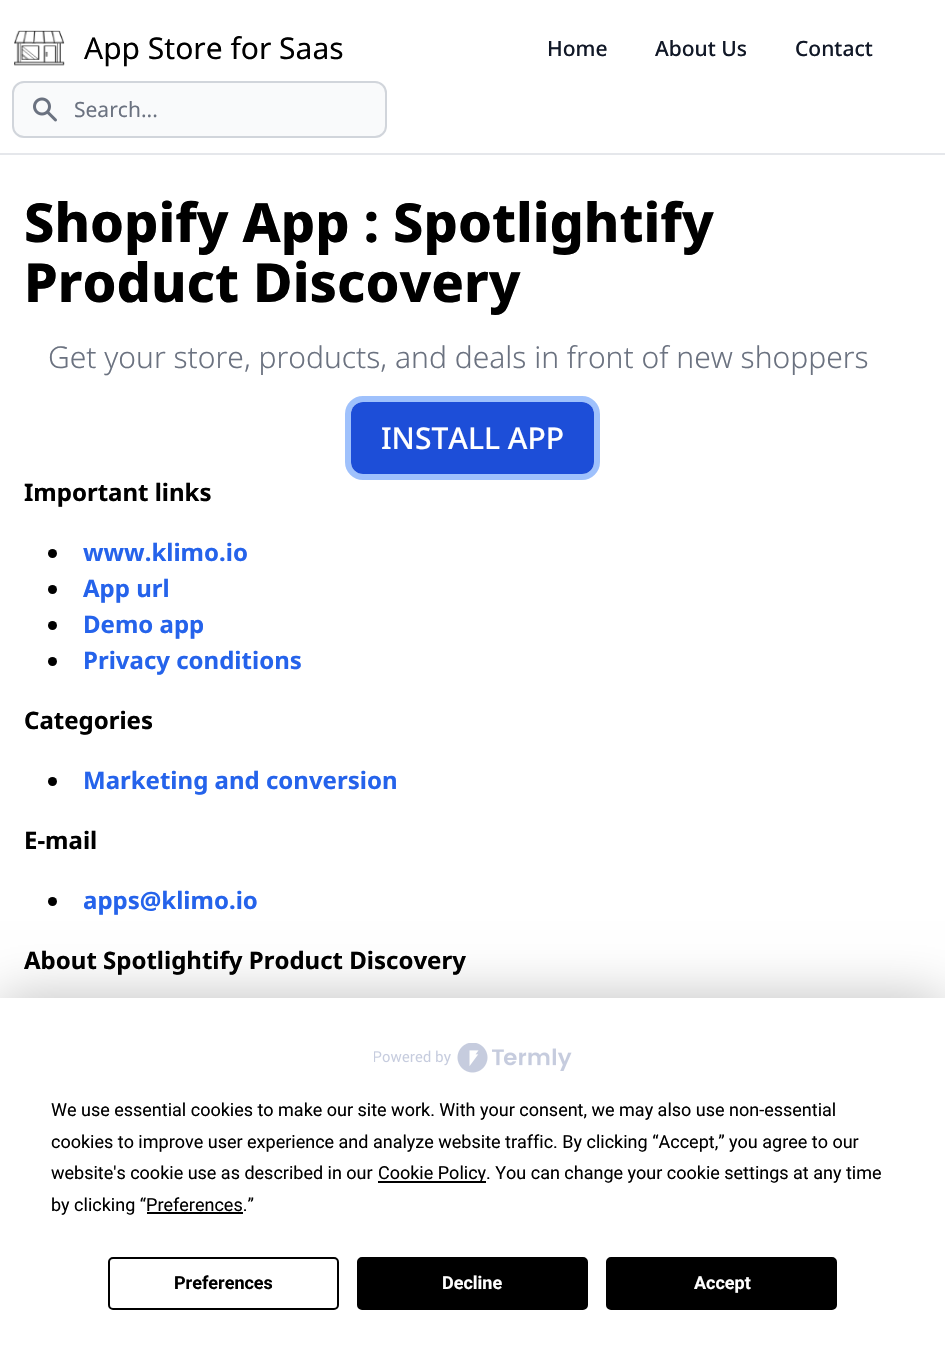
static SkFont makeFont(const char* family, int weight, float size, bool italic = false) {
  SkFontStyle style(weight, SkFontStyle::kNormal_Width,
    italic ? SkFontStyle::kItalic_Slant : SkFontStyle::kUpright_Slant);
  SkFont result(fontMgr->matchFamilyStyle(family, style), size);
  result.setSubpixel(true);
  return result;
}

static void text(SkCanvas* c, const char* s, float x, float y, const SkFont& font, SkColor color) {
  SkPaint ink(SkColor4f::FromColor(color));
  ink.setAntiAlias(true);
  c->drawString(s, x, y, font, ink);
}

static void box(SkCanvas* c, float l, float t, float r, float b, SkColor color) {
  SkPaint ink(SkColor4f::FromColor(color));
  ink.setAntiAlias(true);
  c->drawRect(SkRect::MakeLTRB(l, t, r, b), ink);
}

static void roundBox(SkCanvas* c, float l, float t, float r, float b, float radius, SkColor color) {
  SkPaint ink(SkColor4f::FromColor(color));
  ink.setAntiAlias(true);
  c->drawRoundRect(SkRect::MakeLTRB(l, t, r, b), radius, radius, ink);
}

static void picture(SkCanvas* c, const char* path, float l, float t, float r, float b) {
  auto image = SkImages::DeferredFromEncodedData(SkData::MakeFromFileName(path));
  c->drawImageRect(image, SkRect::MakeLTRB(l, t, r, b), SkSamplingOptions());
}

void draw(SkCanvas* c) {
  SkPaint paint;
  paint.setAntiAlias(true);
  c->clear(0xffffffff);
  box(c, 0, 153, 945, 155, 0xffe5e7eb);
  picture(c, "img_01.png", 14, 30, 65, 66);
  SkFont face1 = makeFont("Noto Sans", 400, 30);
  text(c, "App Store for Saas", 84, 59, face1, 0xff000000);
  SkFont face2 = makeFont("Noto Sans", 500, 21);
  text(c, "Home", 547, 56, face2, 0xff111827);
  text(c, "About Us", 655, 56, face2, 0xff111827);
  text(c, "Contact", 795, 56, face2, 0xff111827);
  paint.setColor(0xfff9fafb);
  c->drawRoundRect(SkRect::MakeLTRB(13, 82, 386, 137), 11, 11, paint);
  paint.setStyle(SkPaint::kStroke_Style);
  paint.setStrokeWidth(2);
  paint.setColor(0xffd1d5db);
  c->drawRoundRect(SkRect::MakeLTRB(13, 82, 386, 137), 11, 11, paint);
  picture(c, "img_02.png", 33, 97, 57, 122);
  SkFont face3 = makeFont("Noto Sans", 400, 21);
  text(c, "Search...", 74, 117, face3, 0xff6b7280);
  SkFont face4 = makeFont("Noto Sans", 800, 54);
  text(c, "Shopify App : Spotlightify", 24, 242, face4, 0xff000000);
  text(c, "Product Discovery", 24, 302, face4, 0xff000000);
  SkFont face5 = makeFont("Noto Sans", 300, 30);
  text(c, "Get your store, products, and deals in front of new shoppers", 48, 368, face5, 0xff6b7280);
  paint.setStrokeWidth(6);
  paint.setColor(0xff9fc1fc);
  c->drawRoundRect(SkRect::MakeLTRB(348, 399, 597, 477), 15, 15, paint);
  roundBox(c, 351, 402, 594, 474, 12, 0xff1d4ed8);
  SkFont face6 = makeFont("Noto Sans", 500, 30);
  text(c, "INSTALL APP", 381, 449, face6, 0xffffffff);
  SkFont face7 = makeFont("Noto Sans", 700, 24);
  text(c, "Important links", 24, 501, face7, 0xff000000);
  paint.setStyle(SkPaint::kFill_Style);
  paint.setColor(0xff000000);
  c->drawCircle(52.5f, 553.5f, 4.5f, paint);
  text(c, "www.klimo.io", 83, 561, face7, 0xff2563eb);
  c->drawCircle(52.5f, 589.5f, 4.5f, paint);
  text(c, "App url", 83, 597, face7, 0xff2563eb);
  c->drawCircle(52.5f, 625.5f, 4.5f, paint);
  text(c, "Demo app", 83, 633, face7, 0xff2563eb);
  c->drawCircle(52.5f, 661.5f, 4.5f, paint);
  text(c, "Privacy conditions", 83, 669, face7, 0xff2563eb);
  text(c, "Categories", 24, 729, face7, 0xff000000);
  c->drawCircle(52.5f, 781.5f, 4.5f, paint);
  text(c, "Marketing and conversion", 83, 789, face7, 0xff2563eb);
  text(c, "E-mail", 24, 849, face7, 0xff000000);
  c->drawCircle(52.5f, 901.5f, 4.5f, paint);
  text(c, "apps@klimo.io", 83, 909, face7, 0xff2563eb);
  text(c, "About Spotlightify Product Discovery", 24, 969, face7, 0xff000000);
  paint.setColor(0x40000000);
  paint.setMaskFilter(SkMaskFilter::MakeBlur(kNormal_SkBlurStyle, 26));
  c->drawRect(SkRect::MakeLTRB(0, 998, 945, 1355), paint);
  paint.setMaskFilter(nullptr);
  box(c, 0, 998, 945, 1354, 0xffffffff);
  picture(c, "img_03.png", 374, 1043, 572, 1073);
  SkFont face8 = makeFont("Roboto", 400, 18);
  text(c, "We use essential cookies to make our site work. With your consent, we may also use non-essential", 51, 1116, face8, 0xff000000);
  text(c, "cookies to improve user experience and analyze website traffic. By clicking “Accept,” you agree to our", 51, 1148, face8, 0xff000000);
  text(c, "website's cookie use as described in our", 51, 1179, face8, 0xff000000);
  box(c, 378, 1181, 486, 1183, 0xff000000);
  text(c, "Cookie Policy. You can change your cookie settings at any time", 378, 1179, face8, 0xff000000);
  text(c, "by clicking “Preferences.”", 51, 1211, face8, 0xff000000);
  box(c, 147, 1212, 243, 1214, 0xff000000);
  paint.setStyle(SkPaint::kStroke_Style);
  paint.setStrokeWidth(2);
  paint.setColor(0xff000000);
  c->drawRoundRect(SkRect::MakeLTRB(109, 1258, 338, 1309), 4, 4, paint);
  SkFont face9 = makeFont("Roboto", 700, 18);
  text(c, "Preferences", 174, 1289, face9, 0xff000000);
  paint.setStyle(SkPaint::kFill_Style);
  c->drawRoundRect(SkRect::MakeLTRB(358, 1258, 587, 1309), 4, 4, paint);
  paint.setStyle(SkPaint::kStroke_Style);
  c->drawRoundRect(SkRect::MakeLTRB(358, 1258, 587, 1309), 4, 4, paint);
  text(c, "Decline", 442, 1289, face9, 0xffffffff);
  paint.setStyle(SkPaint::kFill_Style);
  c->drawRoundRect(SkRect::MakeLTRB(607, 1258, 836, 1309), 4, 4, paint);
  paint.setStyle(SkPaint::kStroke_Style);
  c->drawRoundRect(SkRect::MakeLTRB(607, 1258, 836, 1309), 4, 4, paint);
  text(c, "Accept", 694, 1289, face9, 0xffffffff);
}
